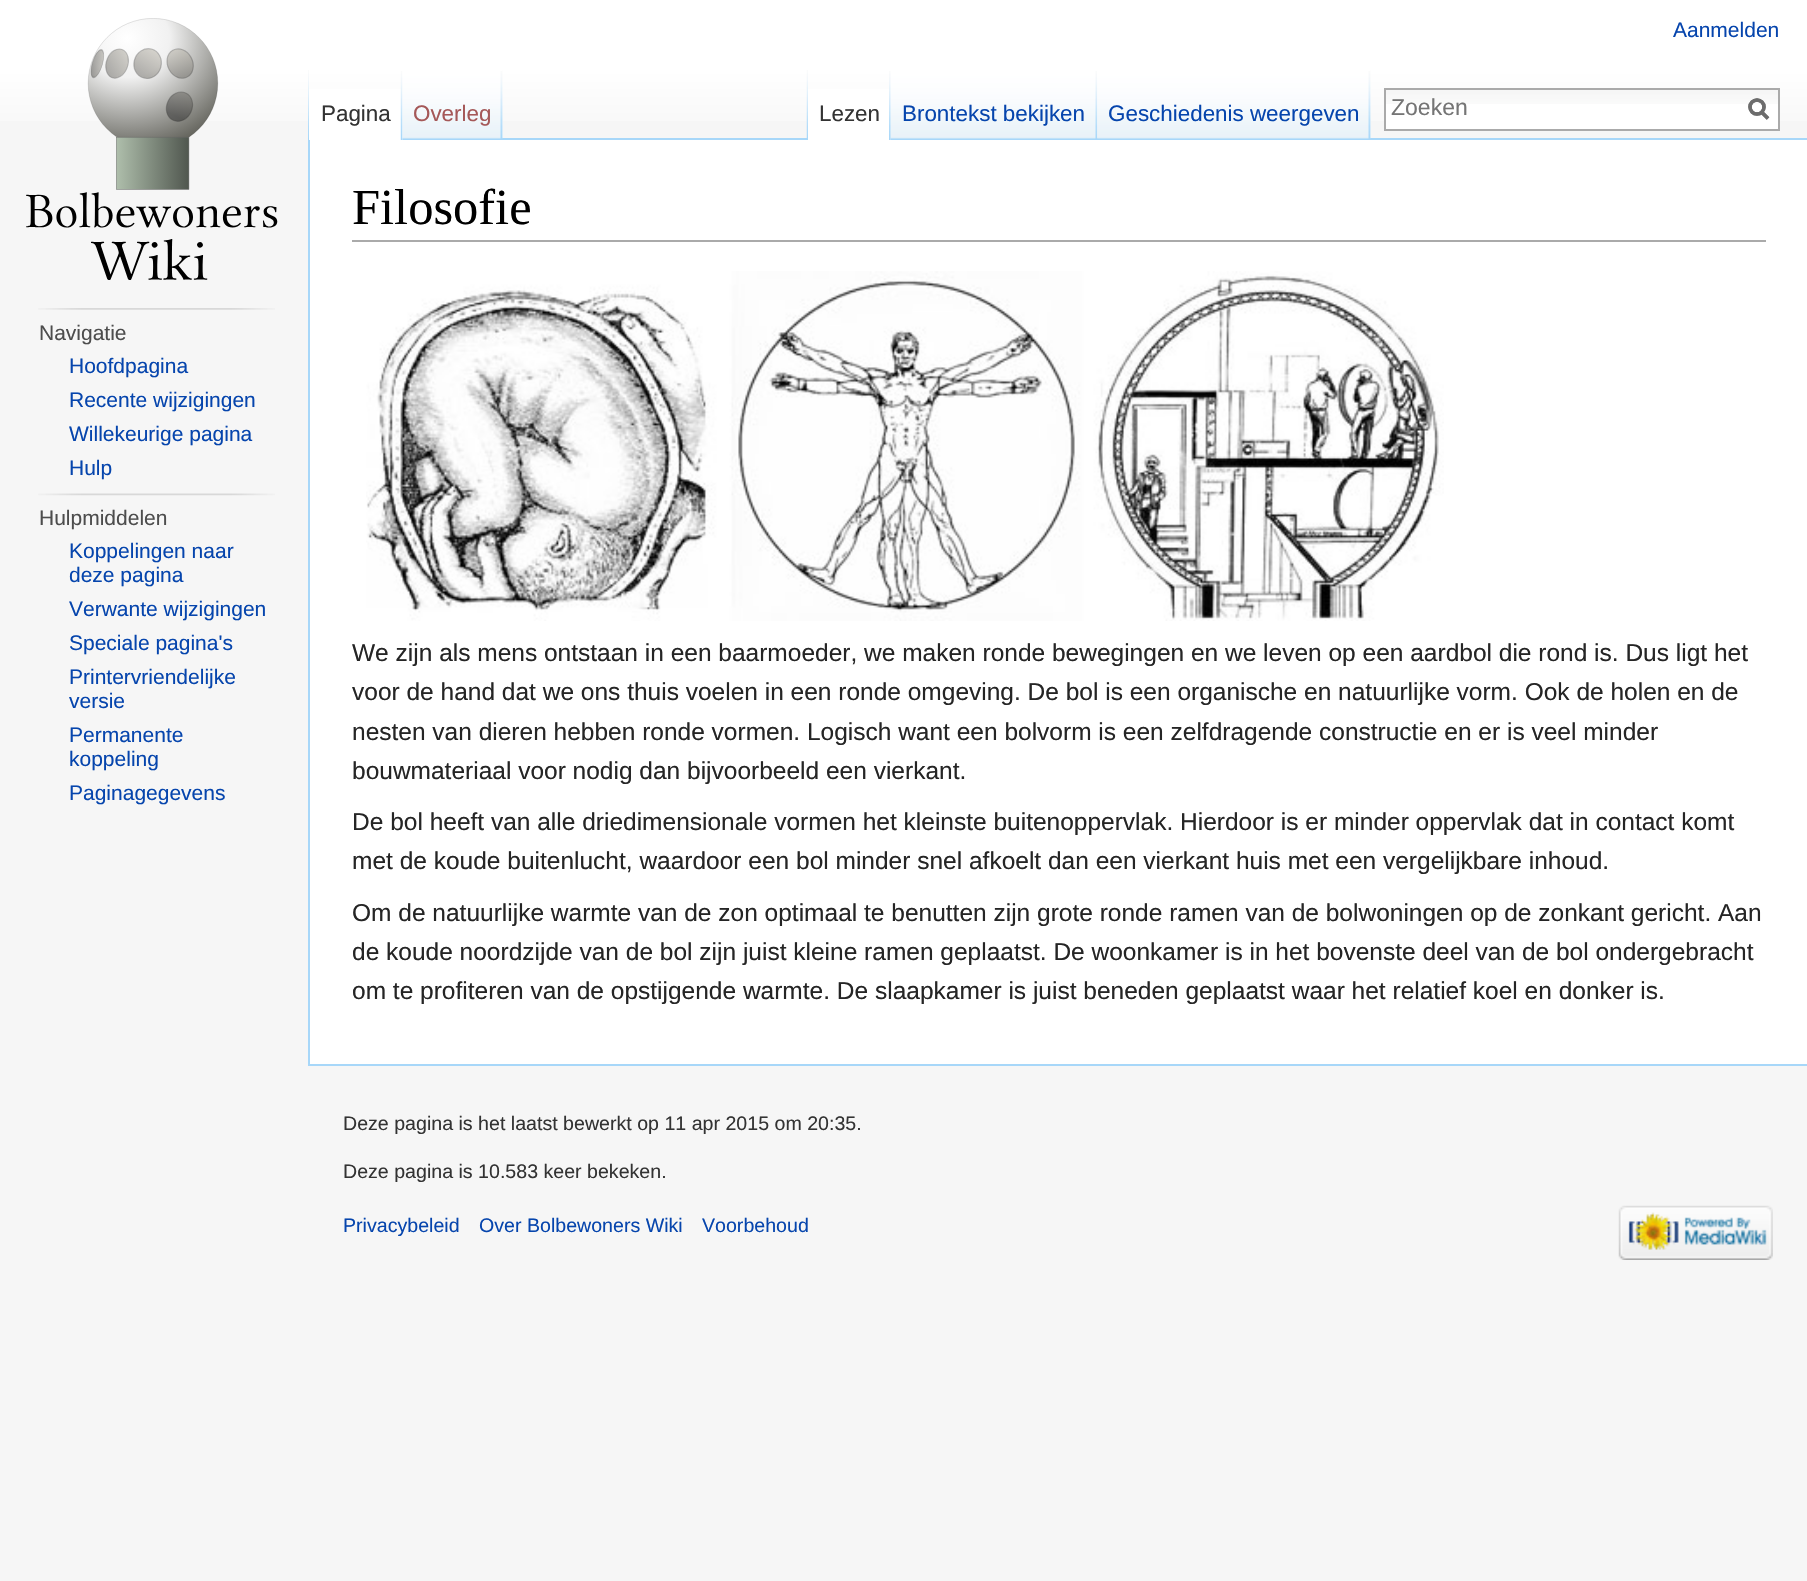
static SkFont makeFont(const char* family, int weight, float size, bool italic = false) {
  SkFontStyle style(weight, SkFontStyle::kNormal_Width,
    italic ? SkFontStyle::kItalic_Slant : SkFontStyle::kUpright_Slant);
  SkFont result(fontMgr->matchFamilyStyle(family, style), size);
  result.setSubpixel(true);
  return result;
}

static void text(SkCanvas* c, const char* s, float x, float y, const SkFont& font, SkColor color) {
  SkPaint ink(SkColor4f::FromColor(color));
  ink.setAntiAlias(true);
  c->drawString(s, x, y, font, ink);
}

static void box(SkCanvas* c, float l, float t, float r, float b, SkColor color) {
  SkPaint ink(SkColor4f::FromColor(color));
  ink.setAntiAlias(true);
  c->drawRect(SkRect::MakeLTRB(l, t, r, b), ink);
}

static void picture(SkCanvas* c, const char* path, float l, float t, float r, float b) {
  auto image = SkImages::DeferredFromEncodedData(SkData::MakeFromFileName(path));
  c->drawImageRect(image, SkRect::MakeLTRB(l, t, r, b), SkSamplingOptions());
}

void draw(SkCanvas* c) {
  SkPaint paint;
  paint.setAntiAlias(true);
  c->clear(0xfff6f6f6);
  {
    const SkColor colors[] = {0xffffffff, 0xfff6f6f6};
    const float stops[] = {0.5f, 1};
    const SkPoint ends[] = {{904, 0}, {904, 140}};
    paint.setShader(SkGradientShader::MakeLinear(ends, colors, stops, 2, SkTileMode::kClamp));
    paint.setAlpha(255);
  }
  c->drawRect(SkRect::MakeLTRB(0, 0, 1807, 121), paint);
  SkFont face1 = makeFont("Liberation Sans", 400, 21);
  text(c, "Aanmelden", 1673, 37, face1, 0xff0645ad);
  picture(c, "img_01.png", 308, 70, 309, 138);
  picture(c, "img_02.png", 502, 70, 503, 138);
  box(c, 308, 1064, 1807, 1066, 0xffa7d7f9);
  box(c, 308, 138, 310, 1066, 0xffa7d7f9);
  box(c, 309, 89, 403, 140, 0xffffffff);
  picture(c, "img_03.png", 400, 71, 403, 140);
  SkFont face2 = makeFont("Liberation Sans", 400, 22.4f);
  text(c, "Pagina", 321, 121, face2, 0xff333333);
  box(c, 502, 138, 1807, 140, 0xffa7d7f9);
  picture(c, "img_04.png", 402, 70, 503, 140);
  picture(c, "img_05.png", 500, 71, 503, 139);
  text(c, "Overleg", 413, 121, face2, 0xffa55858);
  picture(c, "img_06.png", 806, 70, 808, 138);
  picture(c, "img_02.png", 1370, 70, 1371, 138);
  box(c, 808, 89, 891, 140, 0xffffffff);
  picture(c, "img_07.png", 889, 71, 891, 140);
  text(c, "Lezen", 819, 121, face2, 0xff333333);
  picture(c, "img_08.png", 890, 70, 1098, 140);
  picture(c, "img_09.png", 1095, 71, 1098, 139);
  text(c, "Brontekst bekijken", 902, 121, face2, 0xff0645ad);
  picture(c, "img_10.png", 1097, 70, 1371, 140);
  picture(c, "img_05.png", 1368, 71, 1371, 139);
  text(c, "Geschiedenis weergeven", 1108, 121, face2, 0xff0645ad);
  box(c, 1386, 104, 1778, 129, 0xffffffff);
  picture(c, "img_11.png", 1386, 90, 1778, 104);
  paint.setStyle(SkPaint::kStroke_Style);
  paint.setStrokeWidth(2);
  paint.setShader(nullptr);
  paint.setColor(0xffaaaaaa);
  c->drawRect(SkRect::MakeLTRB(1385, 89, 1779, 130), paint);
  SkFont face3 = makeFont("Liberation Sans", 400, 23);
  text(c, "Zoeken", 1391, 115, face3, 0xff757575);
  paint.setStrokeWidth(3.5f);
  paint.setColor(0xff6c6c6c);
  c->drawPath(SkPathBuilder().moveTo(1768, 118.5f).lineTo(1761, 111.5f).detach(), paint);
  c->drawCircle(1757, 107, 7, paint);
  c->drawPath(SkPathBuilder().moveTo(1768, 118.5f).lineTo(1761, 111.5f).detach(), paint);
  c->drawCircle(1757, 107, 7, paint);
  picture(c, "img_12.png", 26, 18, 278, 280);
  picture(c, "img_13.png", 38, 308, 275, 310);
  text(c, "Navigatie", 39, 340, face1, 0xff4d4d4d);
  text(c, "Hoofdpagina", 69, 373, face1, 0xff0645ad);
  text(c, "Recente wijzigingen", 69, 407, face1, 0xff0645ad);
  text(c, "Willekeurige pagina", 69, 441, face1, 0xff0645ad);
  text(c, "Hulp", 69, 475, face1, 0xff0645ad);
  picture(c, "img_14.png", 38, 493, 275, 496);
  text(c, "Hulpmiddelen", 39, 525, face1, 0xff4d4d4d);
  text(c, "Koppelingen naar", 69, 558, face1, 0xff0645ad);
  text(c, "deze pagina", 69, 582, face1, 0xff0645ad);
  text(c, "Verwante wijzigingen", 69, 616, face1, 0xff0645ad);
  text(c, "Speciale pagina's", 69, 650, face1, 0xff0645ad);
  text(c, "Printervriendelijke", 69, 684, face1, 0xff0645ad);
  text(c, "versie", 69, 708, face1, 0xff0645ad);
  text(c, "Permanente", 69, 742, face1, 0xff0645ad);
  text(c, "koppeling", 69, 766, face1, 0xff0645ad);
  text(c, "Paginagegevens", 69, 800, face1, 0xff0645ad);
  box(c, 310, 140, 1807, 1064, 0xffffffff);
  box(c, 352, 240, 1766, 242, 0xffaaaaaa);
  SkFont face4 = makeFont("Liberation Serif", 400, 50.5f);
  text(c, "Filosofie", 352, 224, face4, 0xff000000);
  picture(c, "img_15.png", 366, 271, 1444, 621);
  SkFont face5 = makeFont("Liberation Sans", 400, 24.5f);
  text(c, "We zijn als mens ontstaan in een baarmoeder, we maken ronde bewegingen en we leven op een aardbol die rond is. Dus ligt het", 352, 661, face5, 0xff252525);
  text(c, "voor de hand dat we ons thuis voelen in een ronde omgeving. De bol is een organische en natuurlijke vorm. Ook de holen en de", 352, 700, face5, 0xff252525);
  text(c, "nesten van dieren hebben ronde vormen. Logisch want een bolvorm is een zelfdragende constructie en er is veel minder", 352, 740, face5, 0xff252525);
  text(c, "bouwmateriaal voor nodig dan bijvoorbeeld een vierkant.", 352, 779, face5, 0xff252525);
  text(c, "De bol heeft van alle driedimensionale vormen het kleinste buitenoppervlak. Hierdoor is er minder oppervlak dat in contact komt", 352, 830, face5, 0xff252525);
  text(c, "met de koude buitenlucht, waardoor een bol minder snel afkoelt dan een vierkant huis met een vergelijkbare inhoud.", 352, 869, face5, 0xff252525);
  text(c, "Om de natuurlijke warmte van de zon optimaal te benutten zijn grote ronde ramen van de bolwoningen op de zonkant gericht. Aan", 352, 921, face5, 0xff252525);
  text(c, "de koude noordzijde van de bol zijn juist kleine ramen geplaatst. De woonkamer is in het bovenste deel van de bol ondergebracht", 352, 960, face5, 0xff252525);
  text(c, "om te profiteren van de opstijgende warmte. De slaapkamer is juist beneden geplaatst waar het relatief koel en donker is.", 352, 999, face5, 0xff252525);
  SkFont face6 = makeFont("Liberation Sans", 400, 19.6f);
  text(c, "Deze pagina is het laatst bewerkt op 11 apr 2015 om 20:35.", 343, 1130, face6, 0xff333333);
  text(c, "Deze pagina is 10.583 keer bekeken.", 343, 1178, face6, 0xff333333);
  text(c, "Privacybeleid", 343, 1232, face6, 0xff0645ad);
  text(c, "Over Bolbewoners Wiki", 479, 1232, face6, 0xff0645ad);
  text(c, "Voorbehoud", 702, 1232, face6, 0xff0645ad);
  picture(c, "img_16.png", 1618, 1205, 1773, 1260);
}
